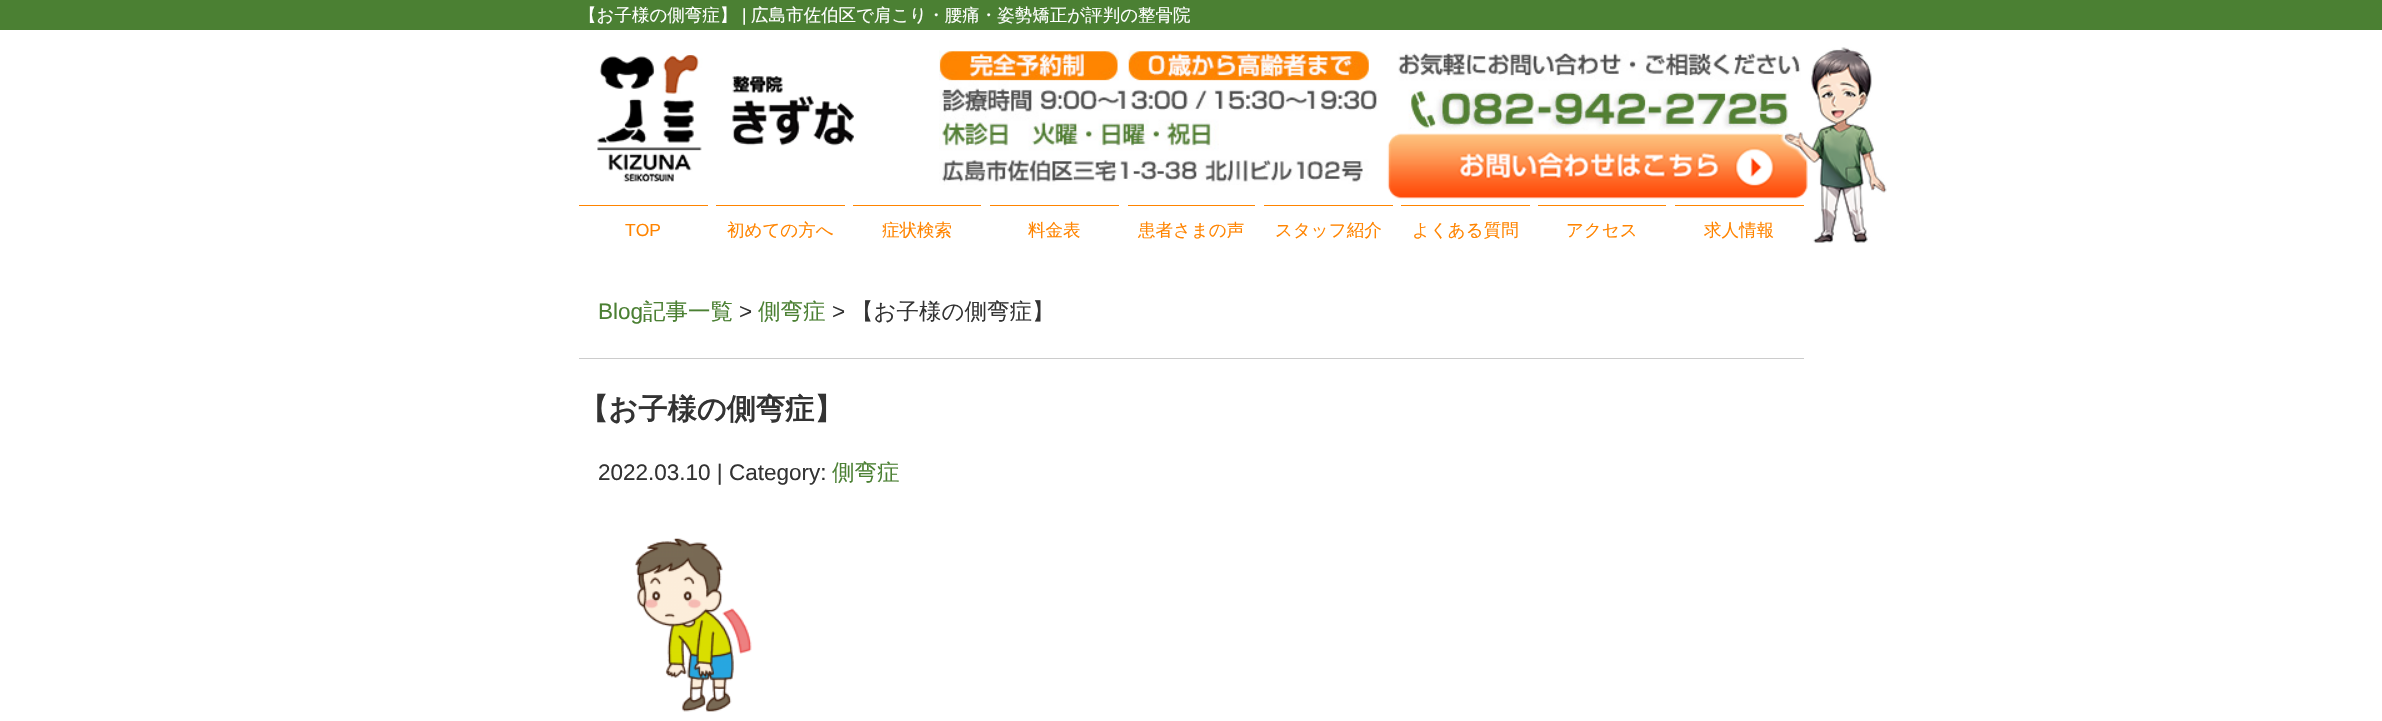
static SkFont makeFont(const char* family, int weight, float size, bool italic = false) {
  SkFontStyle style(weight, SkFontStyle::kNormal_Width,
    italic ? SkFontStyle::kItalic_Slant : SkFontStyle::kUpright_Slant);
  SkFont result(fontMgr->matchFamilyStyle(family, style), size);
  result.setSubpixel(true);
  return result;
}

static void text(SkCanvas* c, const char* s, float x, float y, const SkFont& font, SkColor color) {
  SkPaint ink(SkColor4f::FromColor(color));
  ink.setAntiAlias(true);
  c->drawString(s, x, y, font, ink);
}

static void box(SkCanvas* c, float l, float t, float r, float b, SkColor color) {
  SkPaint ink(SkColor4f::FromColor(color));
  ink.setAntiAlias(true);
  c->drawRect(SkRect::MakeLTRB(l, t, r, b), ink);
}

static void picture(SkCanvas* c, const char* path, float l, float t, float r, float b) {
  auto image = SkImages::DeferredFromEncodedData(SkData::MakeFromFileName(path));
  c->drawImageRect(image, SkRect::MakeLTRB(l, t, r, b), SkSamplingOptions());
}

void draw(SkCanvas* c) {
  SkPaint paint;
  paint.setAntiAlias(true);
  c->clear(0xffffffff);
  box(c, 0, 0, 2382, 30, 0xff4b8033);
  SkFont face1 = makeFont("WenQuanYi Zen Hei", 500, 17.5f);
  text(c, "【お子様の側弯症】", 579, 21, face1, 0xffffffff);
  SkFont face2 = makeFont("Liberation Sans", 400, 17.5f);
  text(c, "|", 742, 21, face2, 0xffffffff);
  text(c, "広島市佐伯区で肩こり・腰痛・姿勢矯正が評判の整骨院", 751, 21, face1, 0xffffffff);
  picture(c, "img_03.png", 939, 50, 1801, 185);
  picture(c, "img_01.png", 1387, 47, 1887, 243);
  picture(c, "img_02.png", 597, 55, 854, 182);
  box(c, 579, 205, 708, 206, 0xffff8400);
  text(c, "TOP", 625, 236, face2, 0xffff8400);
  box(c, 716, 205, 845, 206, 0xffff8400);
  text(c, "初めての方へ", 727, 236, face1, 0xffff8400);
  box(c, 853, 205, 981, 206, 0xffff8400);
  text(c, "症状検索", 882, 236, face1, 0xffff8400);
  box(c, 990, 205, 1119, 206, 0xffff8400);
  text(c, "料金表", 1028, 236, face1, 0xffff8400);
  box(c, 1128, 205, 1255, 206, 0xffff8400);
  text(c, "患者さまの声", 1138, 236, face1, 0xffff8400);
  box(c, 1264, 205, 1393, 206, 0xffff8400);
  text(c, "スタッフ紹介", 1275, 236, face1, 0xffff8400);
  box(c, 1401, 205, 1530, 206, 0xffff8400);
  text(c, "よくある質問", 1412, 236, face1, 0xffff8400);
  box(c, 1538, 205, 1666, 206, 0xffff8400);
  text(c, "アクセス", 1566, 236, face1, 0xffff8400);
  box(c, 1675, 205, 1804, 206, 0xffff8400);
  text(c, "求人情報", 1704, 236, face1, 0xffff8400);
  box(c, 579, 358, 1804, 359, 0xffcccccc);
  SkFont face3 = makeFont("Liberation Sans", 400, 22.5f);
  text(c, "Blog", 598, 319, face3, 0xff4b8033);
  SkFont face4 = makeFont("WenQuanYi Zen Hei", 500, 22.5f);
  text(c, "記事一覧", 643, 319, face4, 0xff4b8033);
  text(c, ">", 739, 319, face3, 0xff333333);
  text(c, "側弯症", 758, 319, face4, 0xff4b8033);
  text(c, ">", 832, 319, face3, 0xff333333);
  text(c, "【お子様の側弯症】", 851, 319, face4, 0xff333333);
  SkFont face5 = makeFont("WenQuanYi Zen Hei", 700, 29.25f);
  text(c, "【お子様の側弯症】", 579, 419, face5, 0xff333333);
  text(c, "2022.03.10 | Category:", 598, 480, face3, 0xff333333);
  text(c, "側弯症", 832, 480, face4, 0xff4b8033);
  picture(c, "img_04.png", 635, 538, 752, 712);
}
